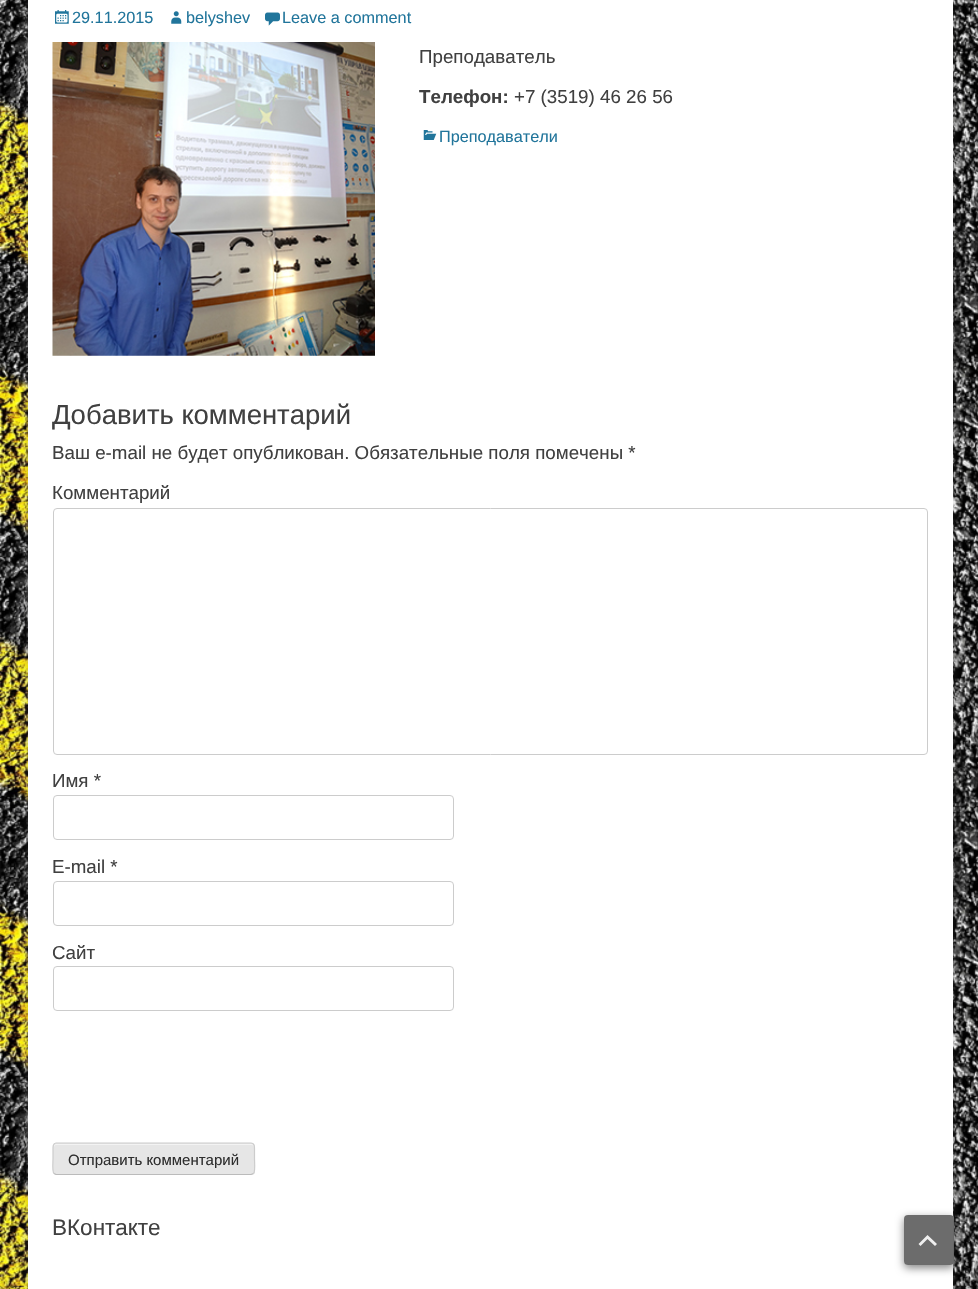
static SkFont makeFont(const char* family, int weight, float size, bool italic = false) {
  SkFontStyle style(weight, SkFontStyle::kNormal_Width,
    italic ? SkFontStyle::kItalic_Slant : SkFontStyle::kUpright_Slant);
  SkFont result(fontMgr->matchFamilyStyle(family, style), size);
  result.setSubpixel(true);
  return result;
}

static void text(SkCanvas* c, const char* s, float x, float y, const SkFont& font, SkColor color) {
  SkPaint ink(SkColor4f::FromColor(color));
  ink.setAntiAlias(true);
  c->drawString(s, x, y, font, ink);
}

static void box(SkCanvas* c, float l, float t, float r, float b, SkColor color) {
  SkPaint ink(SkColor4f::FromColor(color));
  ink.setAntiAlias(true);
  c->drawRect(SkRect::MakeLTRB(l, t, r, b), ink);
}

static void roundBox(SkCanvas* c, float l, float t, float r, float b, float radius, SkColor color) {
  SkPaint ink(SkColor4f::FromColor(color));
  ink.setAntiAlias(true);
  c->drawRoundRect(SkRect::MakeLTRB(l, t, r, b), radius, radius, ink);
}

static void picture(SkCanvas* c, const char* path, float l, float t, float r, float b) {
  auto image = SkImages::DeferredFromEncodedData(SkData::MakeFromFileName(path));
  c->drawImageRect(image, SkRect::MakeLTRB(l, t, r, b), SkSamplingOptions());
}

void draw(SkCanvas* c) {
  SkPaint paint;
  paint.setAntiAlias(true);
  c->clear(0xffffffff);
  picture(c, "img_01.png", 0, 0, 978, 1289);
  paint.setColor(0x4d646464);
  paint.setMaskFilter(SkMaskFilter::MakeBlur(kNormal_SkBlurStyle, 4));
  c->drawRoundRect(SkRect::MakeLTRB(28, -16, 953, 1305), 4, 4, paint);
  paint.setMaskFilter(nullptr);
  box(c, 28, 0, 953, 1289, 0xffffffff);
  picture(c, "img_02.png", 55, 10, 69, 24);
  SkFont face1 = makeFont("Liberation Sans", 400, 16.25f);
  text(c, "29.11.2015", 72, 23, face1, 0xff21759b);
  picture(c, "img_03.png", 171, 11, 182, 24);
  text(c, "belyshev", 186, 23, face1, 0xff21759b);
  picture(c, "img_04.png", 265, 12, 280, 26);
  text(c, "Leave a comment", 282, 23, face1, 0xff21759b);
  picture(c, "img_05.png", 52, 42, 375, 356);
  SkFont face2 = makeFont("Liberation Sans", 400, 18.75f);
  text(c, "Преподаватель", 419, 63, face2, 0xff404040);
  SkFont face3 = makeFont("Liberation Sans", 700, 18.75f);
  text(c, "Телефон:", 419, 103, face3, 0xff404040);
  text(c, "+7 (3519) 46 26 56", 514, 103, face2, 0xff404040);
  picture(c, "img_06.png", 423, 130, 437, 140);
  text(c, "Преподаватели", 439, 142, face1, 0xff21759b);
  SkFont face4 = makeFont("Liberation Sans", 400, 27.5f);
  text(c, "Добавить комментарий", 52, 424, face4, 0xff404040);
  text(c, "Ваш e-mail не будет опубликован. Обязательные поля помечены *", 52, 459, face2, 0xff404040);
  text(c, "Комментарий", 52, 499, face2, 0xff404040);
  paint.setStyle(SkPaint::kStroke_Style);
  paint.setStrokeWidth(1);
  paint.setColor(0xffcccccc);
  c->drawRoundRect(SkRect::MakeLTRB(53.5f, 508.5f, 927.5f, 754.5f), 3.5f, 3.5f, paint);
  text(c, "Имя *", 52, 787, face2, 0xff404040);
  c->drawRoundRect(SkRect::MakeLTRB(53.5f, 795.5f, 453.5f, 839.5f), 3.5f, 3.5f, paint);
  text(c, "E-mail *", 52, 873, face2, 0xff404040);
  c->drawRoundRect(SkRect::MakeLTRB(53.5f, 881.5f, 453.5f, 925.5f), 3.5f, 3.5f, paint);
  text(c, "Сайт", 52, 959, face2, 0xff404040);
  c->drawRoundRect(SkRect::MakeLTRB(53.5f, 966.5f, 453.5f, 1010.5f), 3.5f, 3.5f, paint);
  roundBox(c, 53, 1143, 255, 1175, 4, 0xffe6e6e6);
  paint.setStyle(SkPaint::kFill_Style);
  paint.setColor(0xfff3f3f3);
  c->drawPath(SkPathBuilder().moveTo(56, 1145).lineTo(251, 1145).cubicTo(253, 1145, 254, 1146, 254, 1148).lineTo(254, 1146).cubicTo(254, 1145, 253, 1144, 252, 1144).lineTo(56, 1144).cubicTo(55, 1144, 54, 1145, 54, 1146).lineTo(54, 1148).cubicTo(54, 1146, 55, 1145, 56, 1145).close().detach(), paint);
  paint.setStyle(SkPaint::kStroke_Style);
  paint.setStrokeWidth(1.2f);
  paint.setColor(0xffbbbbbb);
  c->drawPath(SkPathBuilder().moveTo(253.5f, 1173.5f).lineTo(251, 1174.5f).lineTo(56, 1174.5f).lineTo(54, 1173.5f).detach(), paint);
  paint.setColor(0xffcccccc);
  c->drawPath(SkPathBuilder().moveTo(54, 1173.5f).cubicTo(52, 1171.5f, 53, 1161.5f, 53, 1159).lineTo(53, 1150.5f).cubicTo(53, 1148, 52.5f, 1143, 56, 1143).lineTo(251, 1143).cubicTo(255, 1143, 254.5f, 1148, 254.5f, 1150.5f).lineTo(254.5f, 1159).cubicTo(254.5f, 1161.5f, 255.5f, 1171.5f, 253.5f, 1173.5f).detach(), paint);
  SkFont face5 = makeFont("Liberation Sans", 400, 15);
  text(c, "Отправить комментарий", 68, 1165, face5, 0xff2e2e2e);
  SkFont face6 = makeFont("Liberation Sans", 400, 22.5f);
  text(c, "ВКонтакте", 52, 1235, face6, 0xff404040);
  c->save();
  c->clipPath(SkPathBuilder(SkPathFillType::kEvenOdd).moveTo(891, 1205).lineTo(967, 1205).lineTo(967, 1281).lineTo(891, 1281).close().moveTo(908, 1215).lineTo(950, 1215).cubicTo(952, 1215, 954, 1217, 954, 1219).lineTo(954, 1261).cubicTo(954, 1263, 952, 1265, 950, 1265).lineTo(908, 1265).cubicTo(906, 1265, 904, 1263, 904, 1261).lineTo(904, 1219).cubicTo(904, 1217, 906, 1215, 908, 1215).close().detach(), true);
  paint.setStyle(SkPaint::kFill_Style);
  paint.setColor(0x7a000000);
  paint.setMaskFilter(SkMaskFilter::MakeBlur(kNormal_SkBlurStyle, 4));
  c->drawRoundRect(SkRect::MakeLTRB(904, 1218, 954, 1268), 4, 4, paint);
  paint.setMaskFilter(nullptr);
  c->restore();
  roundBox(c, 904, 1215, 954, 1265, 4, 0xf5666666);
  paint.setColor(0xffefefef);
  c->drawPath(SkPathBuilder().moveTo(935, 1246).lineTo(927.5f, 1239).lineTo(920.5f, 1246).lineTo(918.5f, 1244).lineTo(927.5f, 1235).lineTo(937, 1244).close().detach(), paint);
}
